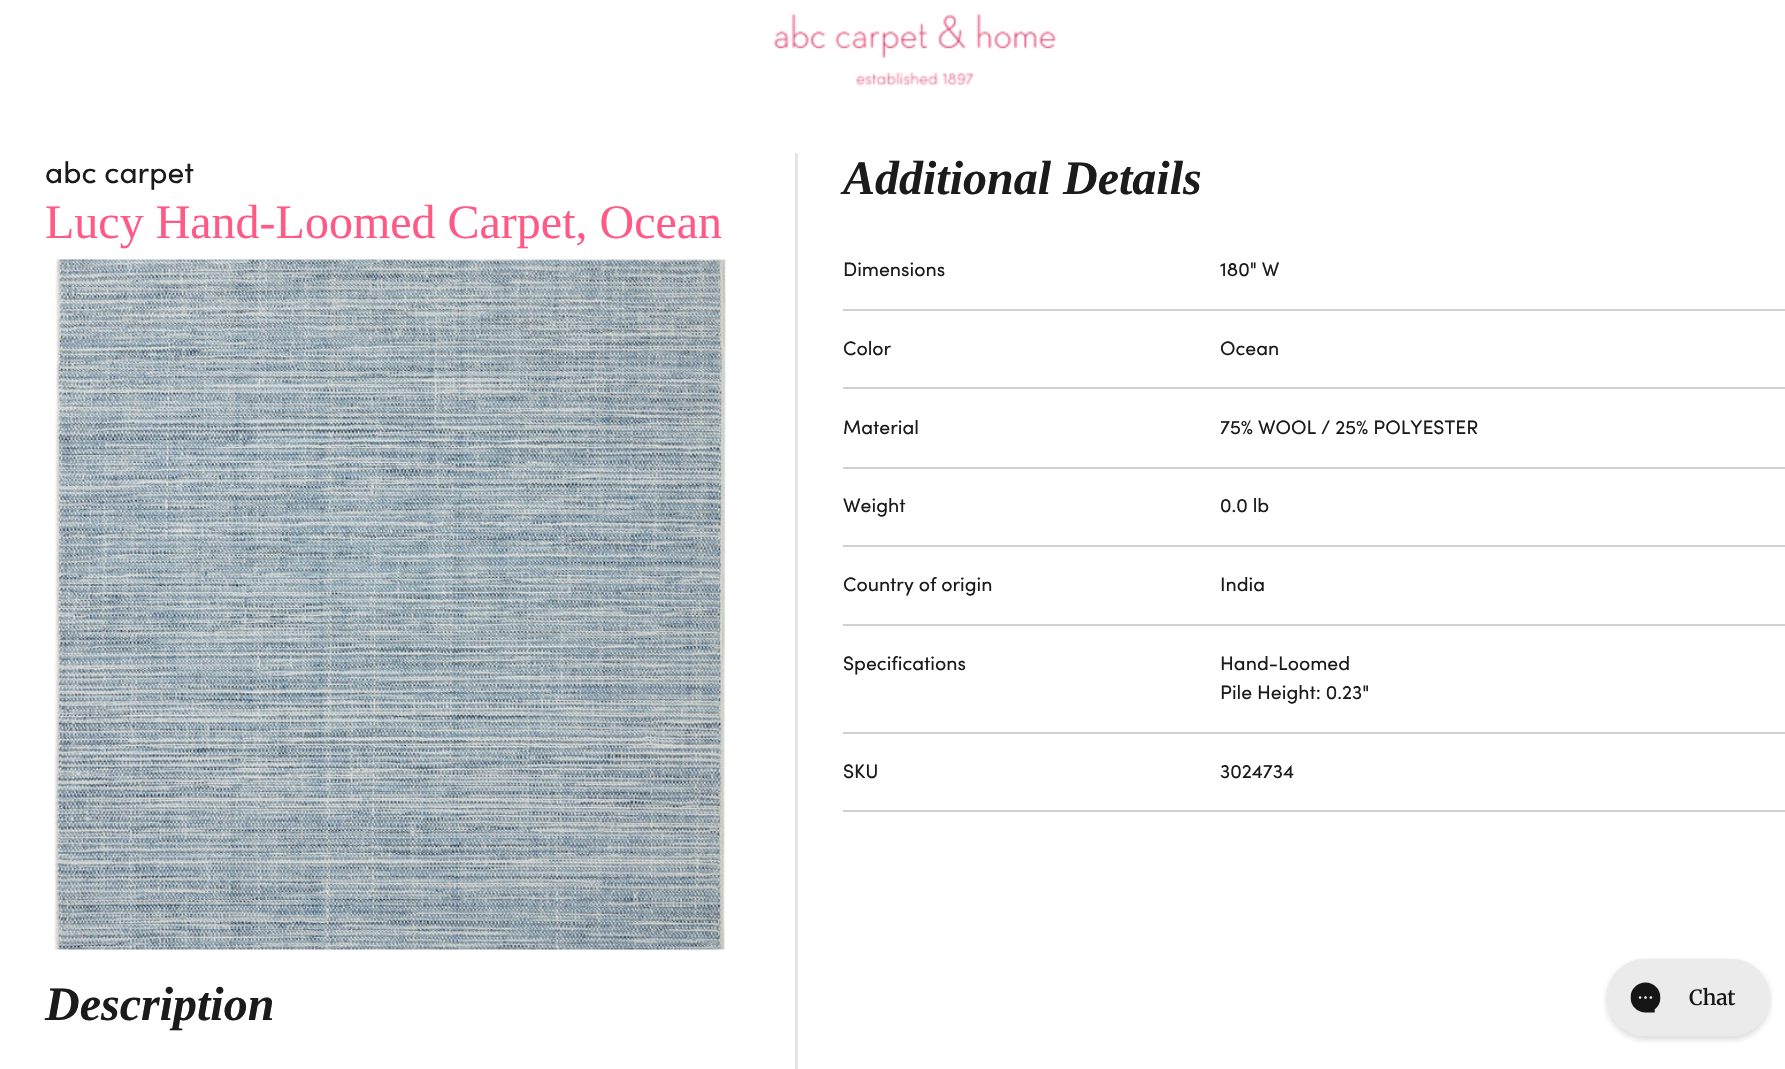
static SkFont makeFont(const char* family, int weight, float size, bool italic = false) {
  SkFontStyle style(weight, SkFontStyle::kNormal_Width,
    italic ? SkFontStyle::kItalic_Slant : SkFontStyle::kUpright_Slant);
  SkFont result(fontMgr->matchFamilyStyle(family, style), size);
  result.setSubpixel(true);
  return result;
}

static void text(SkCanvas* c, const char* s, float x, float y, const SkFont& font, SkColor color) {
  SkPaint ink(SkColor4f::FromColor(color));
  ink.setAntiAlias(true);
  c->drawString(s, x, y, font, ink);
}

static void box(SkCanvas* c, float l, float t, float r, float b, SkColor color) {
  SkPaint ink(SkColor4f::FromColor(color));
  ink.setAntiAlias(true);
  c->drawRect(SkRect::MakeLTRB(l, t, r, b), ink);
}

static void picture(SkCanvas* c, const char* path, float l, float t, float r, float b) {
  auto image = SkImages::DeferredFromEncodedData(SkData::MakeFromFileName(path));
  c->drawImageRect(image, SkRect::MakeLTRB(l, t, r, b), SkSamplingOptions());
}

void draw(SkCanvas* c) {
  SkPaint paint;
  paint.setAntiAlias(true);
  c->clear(0xffffffff);
  picture(c, "img_01.png", 773, 13, 1057, 86);
  SkFont face1 = makeFont("Sofia", 400, 30);
  text(c, "abc carpet", 45, 183, face1, 0xff1b1b1b);
  SkFont face2 = makeFont("Liberation Serif", 400, 48);
  text(c, "Lucy Hand-Loomed Carpet, Ocean", 45, 238, face2, 0xfffe5a86);
  picture(c, "img_02.png", 54, 259, 726, 950);
  SkFont face3 = makeFont("Liberation Serif", 700, 48, true);
  text(c, "Description", 45, 1020, face3, 0xff1b1b1b);
  box(c, 795, 153, 798, 1069, 0xffe5e5e5);
  text(c, "Additional Details", 843, 194, face3, 0xff1b1b1b);
  box(c, 843, 309, 1785, 311, 0xffd1d1d1);
  SkFont face4 = makeFont("Sofia", 400, 19.5f);
  text(c, "Dimensions", 843, 276, face4, 0xff1b1b1b);
  text(c, "180\" W", 1220, 276, face4, 0xff1b1b1b);
  box(c, 843, 387, 1785, 389, 0xffd1d1d1);
  text(c, "Color", 843, 355, face4, 0xff1b1b1b);
  text(c, "Ocean", 1220, 355, face4, 0xff1b1b1b);
  box(c, 843, 467, 1785, 469, 0xffd1d1d1);
  text(c, "Material", 843, 434, face4, 0xff1b1b1b);
  text(c, "75% WOOL / 25% POLYESTER", 1220, 434, face4, 0xff1b1b1b);
  box(c, 843, 545, 1785, 547, 0xffd1d1d1);
  text(c, "Weight", 843, 512, face4, 0xff1b1b1b);
  text(c, "0.0 lb", 1220, 512, face4, 0xff1b1b1b);
  box(c, 843, 624, 1785, 626, 0xffd1d1d1);
  text(c, "Country of origin", 843, 591, face4, 0xff1b1b1b);
  text(c, "India", 1220, 591, face4, 0xff1b1b1b);
  box(c, 843, 732, 1785, 734, 0xffd1d1d1);
  text(c, "Specifications", 843, 670, face4, 0xff1b1b1b);
  text(c, "Hand-Loomed", 1220, 670, face4, 0xff1b1b1b);
  text(c, "Pile Height: 0.23\"", 1220, 699, face4, 0xff1b1b1b);
  box(c, 843, 810, 1785, 812, 0xffd1d1d1);
  text(c, "SKU", 843, 778, face4, 0xff1b1b1b);
  text(c, "3024734", 1220, 778, face4, 0xff1b1b1b);
  picture(c, "img_03.png", 1603, 958, 1773, 1043);
}
